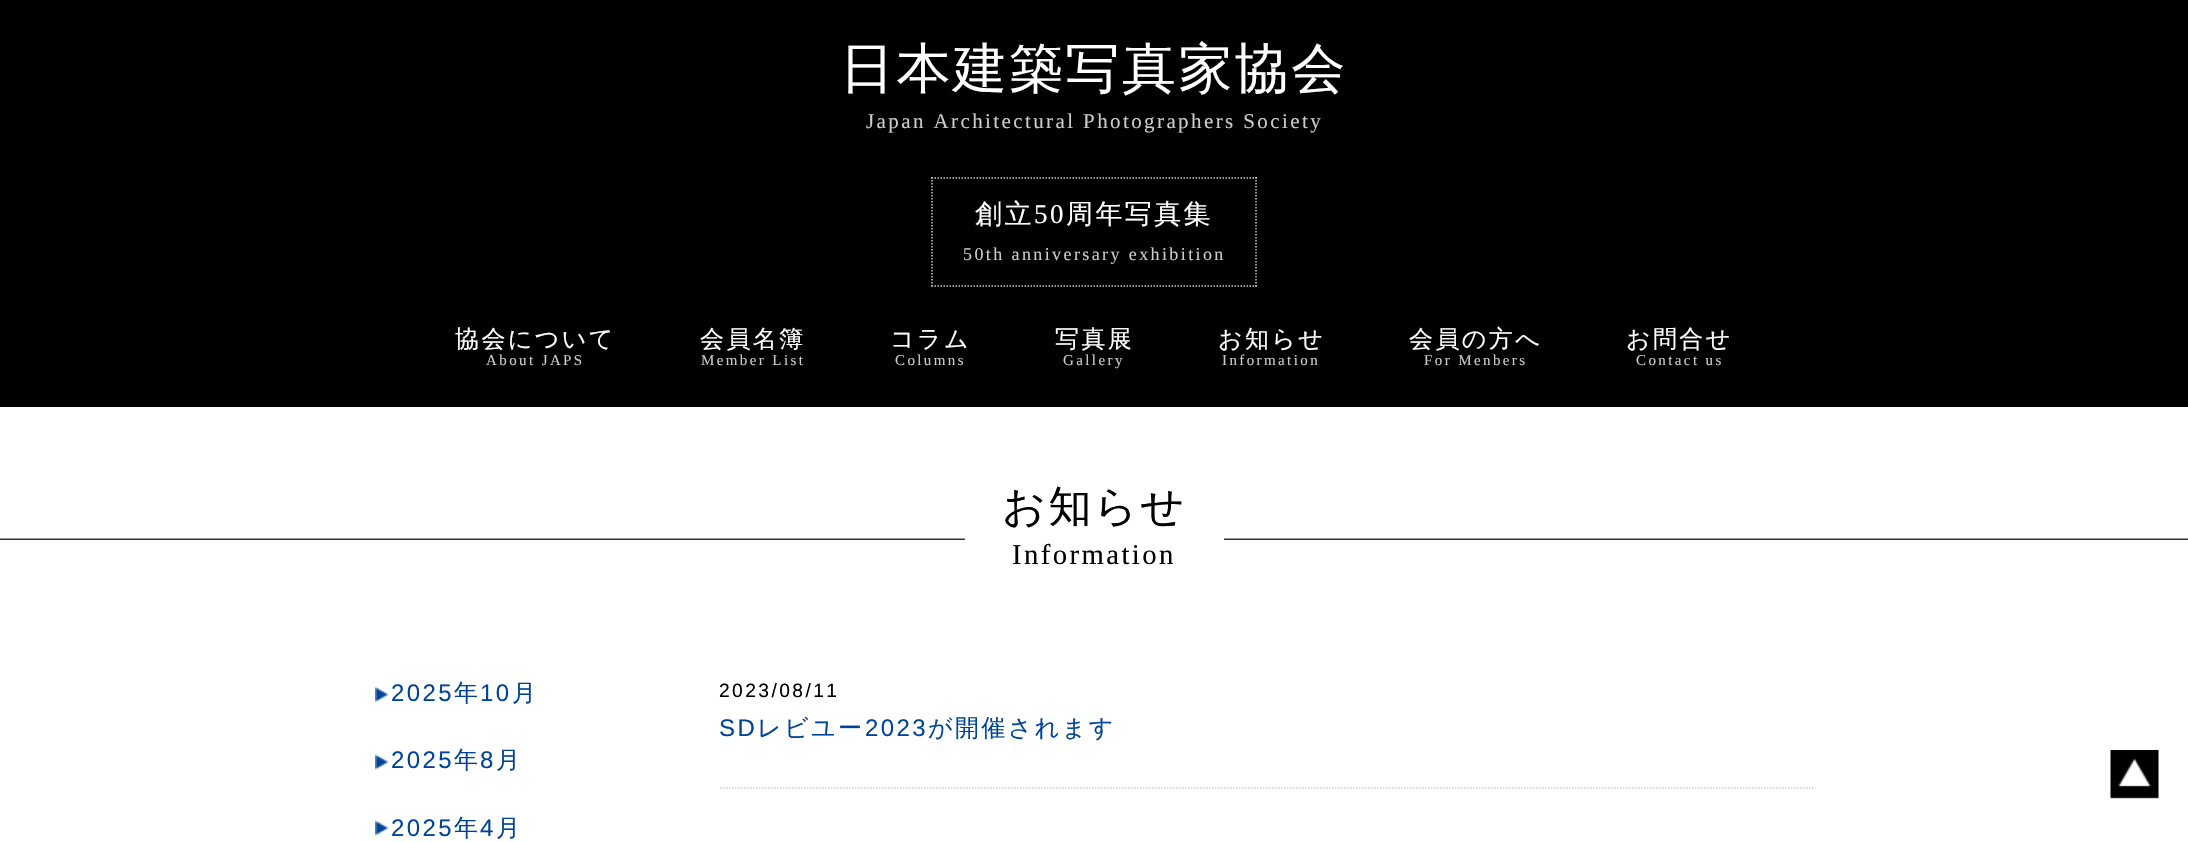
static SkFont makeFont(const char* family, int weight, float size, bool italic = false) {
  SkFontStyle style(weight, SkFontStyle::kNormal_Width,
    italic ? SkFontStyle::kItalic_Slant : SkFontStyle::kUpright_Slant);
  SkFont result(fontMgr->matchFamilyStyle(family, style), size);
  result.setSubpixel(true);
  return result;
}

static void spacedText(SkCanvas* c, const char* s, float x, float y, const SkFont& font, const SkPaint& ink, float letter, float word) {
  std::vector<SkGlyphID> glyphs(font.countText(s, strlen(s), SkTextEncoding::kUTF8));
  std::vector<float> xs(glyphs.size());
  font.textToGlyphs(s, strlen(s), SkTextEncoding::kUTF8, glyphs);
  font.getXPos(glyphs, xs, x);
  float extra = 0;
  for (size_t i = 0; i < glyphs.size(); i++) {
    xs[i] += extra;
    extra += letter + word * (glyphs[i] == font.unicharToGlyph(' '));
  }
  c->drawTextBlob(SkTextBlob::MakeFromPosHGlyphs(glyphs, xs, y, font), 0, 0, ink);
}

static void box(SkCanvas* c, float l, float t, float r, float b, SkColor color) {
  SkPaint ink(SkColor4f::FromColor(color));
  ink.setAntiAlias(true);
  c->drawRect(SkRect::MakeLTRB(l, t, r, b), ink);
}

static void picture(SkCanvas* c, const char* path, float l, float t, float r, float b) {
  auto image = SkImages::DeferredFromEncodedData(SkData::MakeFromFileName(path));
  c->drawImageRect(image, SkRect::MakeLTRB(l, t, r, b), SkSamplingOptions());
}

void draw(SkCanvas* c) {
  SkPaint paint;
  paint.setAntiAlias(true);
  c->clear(0xff000000);
  SkFont face1 = makeFont("WenQuanYi Zen Hei", 500, 54);
  paint.setColor(0xffffffff);
  spacedText(c, "日本建築写真家協会", 840, 87, face1, paint, 2.4f, 0);
  SkFont face2 = makeFont("Liberation Serif", 400, 21);
  paint.setColor(0xffcccccc);
  spacedText(c, "Japan Architectural Photographers Society", 866, 128, face2, paint, 2.4f, 0);
  paint.setStyle(SkPaint::kStroke_Style);
  paint.setStrokeWidth(1.5f);
  paint.setPathEffect(SkDashPathEffect::Make({{1.5f, 1.5f}}, 0));
  c->drawPath(SkPathBuilder().moveTo(931.5f, 178).lineTo(1257, 178).detach(), paint);
  paint.setPathEffect(nullptr);
  paint.setPathEffect(SkDashPathEffect::Make({{1.5f, 1.5f}}, 0));
  c->drawPath(SkPathBuilder().moveTo(1256, 177).lineTo(1256, 286.5f).detach(), paint);
  paint.setPathEffect(nullptr);
  paint.setPathEffect(SkDashPathEffect::Make({{1.5f, 1.5f}}, 0));
  c->drawPath(SkPathBuilder().moveTo(931.5f, 286).lineTo(1257, 286).detach(), paint);
  paint.setPathEffect(nullptr);
  paint.setPathEffect(SkDashPathEffect::Make({{1.5f, 1.5f}}, 0));
  c->drawPath(SkPathBuilder().moveTo(932, 177).lineTo(932, 286.5f).detach(), paint);
  paint.setPathEffect(nullptr);
  SkFont face3 = makeFont("WenQuanYi Zen Hei", 500, 27);
  paint.setStyle(SkPaint::kFill_Style);
  paint.setColor(0xffffffff);
  spacedText(c, "創立", 975, 223, face3, paint, 2.4f, 0);
  SkFont face4 = makeFont("Liberation Serif", 400, 27);
  spacedText(c, "50", 1034, 223, face4, paint, 2.4f, 0);
  spacedText(c, "周年写真集", 1066, 223, face3, paint, 2.4f, 0);
  SkFont face5 = makeFont("Liberation Serif", 400, 18);
  paint.setColor(0xffcccccc);
  spacedText(c, "50th anniversary exhibition", 963, 260, face5, paint, 2.4f, 0);
  SkFont face6 = makeFont("WenQuanYi Zen Hei", 500, 24);
  paint.setColor(0xffffffff);
  spacedText(c, "協会について", 455, 347, face6, paint, 2.4f, 0);
  SkFont face7 = makeFont("Liberation Serif", 400, 15);
  paint.setColor(0xffcccccc);
  spacedText(c, "About JAPS", 486, 365, face7, paint, 2.4f, 0);
  paint.setColor(0xffffffff);
  spacedText(c, "会員名簿", 700, 347, face6, paint, 2.4f, 0);
  paint.setColor(0xffcccccc);
  spacedText(c, "Member List", 701, 365, face7, paint, 2.4f, 0);
  paint.setColor(0xffffffff);
  spacedText(c, "コラム", 890, 347, face6, paint, 2.4f, 0);
  paint.setColor(0xffcccccc);
  spacedText(c, "Columns", 895, 365, face7, paint, 2.4f, 0);
  paint.setColor(0xffffffff);
  spacedText(c, "写真展", 1055, 347, face6, paint, 2.4f, 0);
  paint.setColor(0xffcccccc);
  spacedText(c, "Gallery", 1063, 365, face7, paint, 2.4f, 0);
  paint.setColor(0xffffffff);
  spacedText(c, "お知らせ", 1218, 347, face6, paint, 2.4f, 0);
  paint.setColor(0xffcccccc);
  spacedText(c, "Information", 1222, 365, face7, paint, 2.4f, 0);
  paint.setColor(0xffffffff);
  spacedText(c, "会員の方へ", 1409, 347, face6, paint, 2.4f, 0);
  paint.setColor(0xffcccccc);
  spacedText(c, "For Menbers", 1424, 365, face7, paint, 2.4f, 0);
  paint.setColor(0xffffffff);
  spacedText(c, "お問合せ", 1626, 347, face6, paint, 2.4f, 0);
  paint.setColor(0xffcccccc);
  spacedText(c, "Contact us", 1636, 365, face7, paint, 2.4f, 0);
  box(c, 0, 407, 2188, 842, 0xffffffff);
  picture(c, "img_01.png", 0, 538, 2188, 540);
  box(c, 965, 538, 1224, 540, 0xffffffff);
  SkFont face8 = makeFont("WenQuanYi Zen Hei", 500, 43);
  paint.setColor(0xff000000);
  spacedText(c, "お知らせ", 1002, 521, face8, paint, 2.4f, 0);
  SkFont face9 = makeFont("Liberation Serif", 400, 28.75f);
  spacedText(c, "Information", 1012, 564, face9, paint, 2.4f, 0);
  picture(c, "img_02.png", 375, 687, 389, 702);
  SkFont face10 = makeFont("Liberation Sans", 400, 24);
  paint.setColor(0xff004499);
  spacedText(c, "2025", 391, 701, face10, paint, 2.4f, 0);
  spacedText(c, "年", 454, 701, face6, paint, 2.4f, 0);
  spacedText(c, "10", 480, 701, face10, paint, 2.4f, 0);
  spacedText(c, "月", 512, 701, face6, paint, 2.4f, 0);
  picture(c, "img_03.png", 375, 754, 389, 770);
  spacedText(c, "2025", 391, 768, face10, paint, 2.4f, 0);
  spacedText(c, "年", 454, 768, face6, paint, 2.4f, 0);
  spacedText(c, "8", 480, 768, face10, paint, 2.4f, 0);
  spacedText(c, "月", 496, 768, face6, paint, 2.4f, 0);
  picture(c, "img_03.png", 375, 820, 389, 836);
  spacedText(c, "2025", 391, 836, face10, paint, 2.4f, 0);
  spacedText(c, "年", 454, 836, face6, paint, 2.4f, 0);
  spacedText(c, "4", 480, 836, face10, paint, 2.4f, 0);
  spacedText(c, "月", 496, 836, face6, paint, 2.4f, 0);
  paint.setStyle(SkPaint::kStroke_Style);
  paint.setColor(0xffcccccc);
  paint.setPathEffect(SkDashPathEffect::Make({{1.5f, 1.5f}}, 0));
  c->drawPath(SkPathBuilder().moveTo(720, 788).lineTo(1815, 788).detach(), paint);
  paint.setPathEffect(nullptr);
  SkFont face11 = makeFont("Liberation Sans", 400, 19.25f);
  paint.setStyle(SkPaint::kFill_Style);
  paint.setColor(0xff000000);
  spacedText(c, "2023/08/11", 719, 697, face11, paint, 2.4f, 0);
  paint.setColor(0xff004499);
  spacedText(c, "SD", 719, 736, face10, paint, 2.4f, 0);
  spacedText(c, "レビユー", 757, 736, face6, paint, 2.4f, 0);
  spacedText(c, "2023", 865, 736, face10, paint, 2.4f, 0);
  spacedText(c, "が開催されます", 928, 736, face6, paint, 2.4f, 0);
  picture(c, "img_04.png", 2110, 750, 2159, 799);
}
